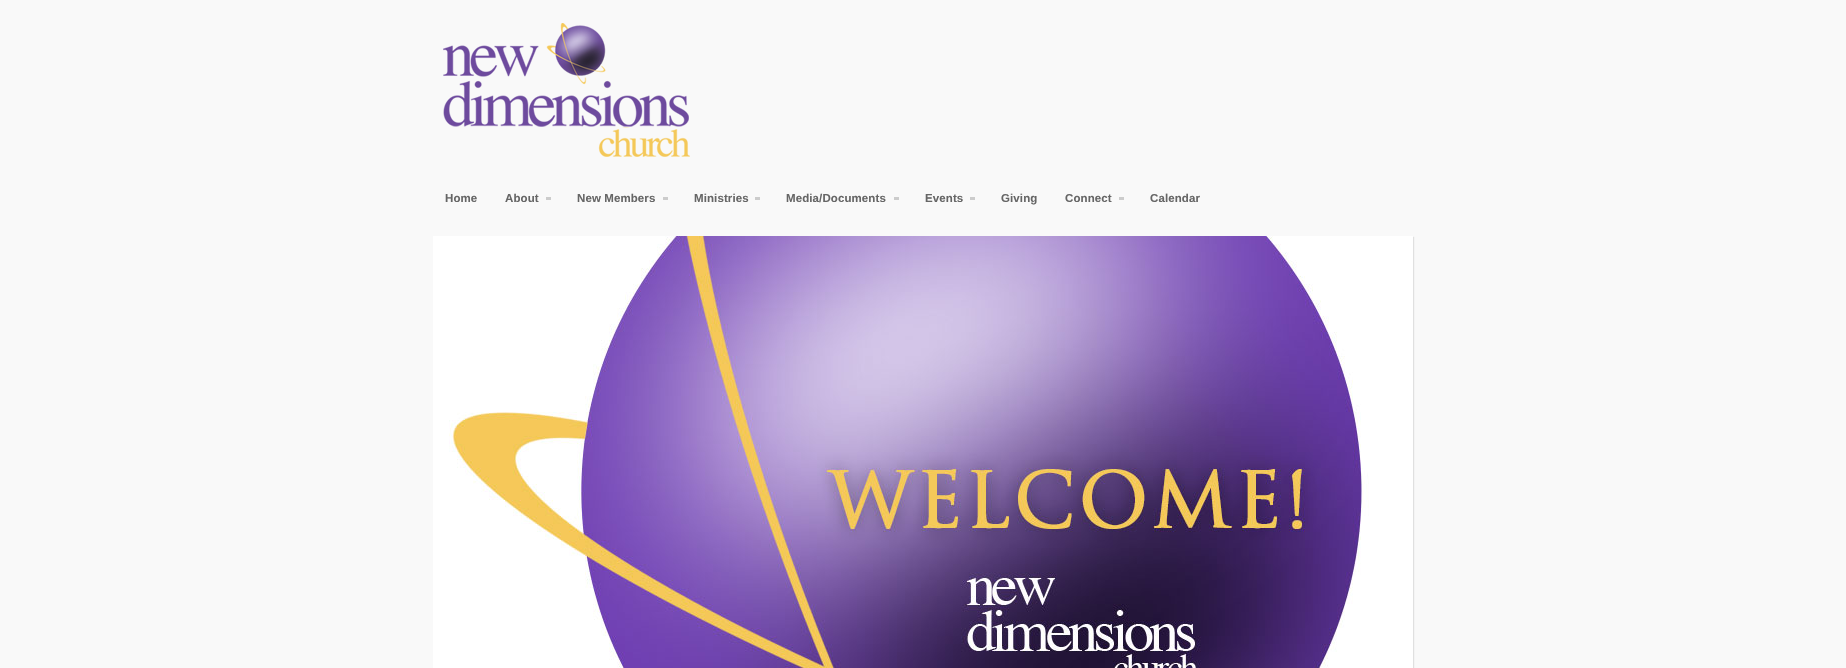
static SkFont makeFont(const char* family, int weight, float size, bool italic = false) {
  SkFontStyle style(weight, SkFontStyle::kNormal_Width,
    italic ? SkFontStyle::kItalic_Slant : SkFontStyle::kUpright_Slant);
  SkFont result(fontMgr->matchFamilyStyle(family, style), size);
  result.setSubpixel(true);
  return result;
}

static void spacedText(SkCanvas* c, const char* s, float x, float y, const SkFont& font, const SkPaint& ink, float letter, float word) {
  std::vector<SkGlyphID> glyphs(font.countText(s, strlen(s), SkTextEncoding::kUTF8));
  std::vector<float> xs(glyphs.size());
  font.textToGlyphs(s, strlen(s), SkTextEncoding::kUTF8, glyphs);
  font.getXPos(glyphs, xs, x);
  float extra = 0;
  for (size_t i = 0; i < glyphs.size(); i++) {
    xs[i] += extra;
    extra += letter + word * (glyphs[i] == font.unicharToGlyph(' '));
  }
  c->drawTextBlob(SkTextBlob::MakeFromPosHGlyphs(glyphs, xs, y, font), 0, 0, ink);
}

static void box(SkCanvas* c, float l, float t, float r, float b, SkColor color) {
  SkPaint ink(SkColor4f::FromColor(color));
  ink.setAntiAlias(true);
  c->drawRect(SkRect::MakeLTRB(l, t, r, b), ink);
}

static void picture(SkCanvas* c, const char* path, float l, float t, float r, float b) {
  auto image = SkImages::DeferredFromEncodedData(SkData::MakeFromFileName(path));
  c->drawImageRect(image, SkRect::MakeLTRB(l, t, r, b), SkSamplingOptions());
}

void draw(SkCanvas* c) {
  SkPaint paint;
  paint.setAntiAlias(true);
  c->clear(0xfff9f9f9);
  picture(c, "img_01.png", 443, 23, 690, 157);
  SkFont face1 = makeFont("Liberation Sans", 700, 11.5f);
  paint.setColor(0xff666666);
  spacedText(c, "Home", 445, 202, face1, paint, 0.1f, 0);
  spacedText(c, "About", 505, 202, face1, paint, 0.1f, 0);
  box(c, 546, 197, 551, 200, 0xffcccccc);
  spacedText(c, "New Members", 577, 202, face1, paint, 0.1f, 0);
  box(c, 663, 197, 668, 200, 0xffcccccc);
  spacedText(c, "Ministries", 694, 202, face1, paint, 0.1f, 0);
  box(c, 755, 197, 760, 200, 0xffcccccc);
  spacedText(c, "Media/Documents", 786, 202, face1, paint, 0.1f, 0);
  box(c, 894, 197, 899, 200, 0xffcccccc);
  spacedText(c, "Events", 925, 202, face1, paint, 0.1f, 0);
  box(c, 970, 197, 975, 200, 0xffcccccc);
  spacedText(c, "Giving", 1001, 202, face1, paint, 0.1f, 0);
  spacedText(c, "Connect", 1065, 202, face1, paint, 0.1f, 0);
  box(c, 1119, 197, 1124, 200, 0xffcccccc);
  spacedText(c, "Calendar", 1150, 202, face1, paint, 0.1f, 0);
  paint.setColor(0x1a000000);
  paint.setMaskFilter(SkMaskFilter::MakeBlur(kNormal_SkBlurStyle, 0.5f));
  c->drawRect(SkRect::MakeLTRB(434, 237, 1414, 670), paint);
  paint.setMaskFilter(nullptr);
  picture(c, "img_02.png", 433, 236, 1413, 668);
}
